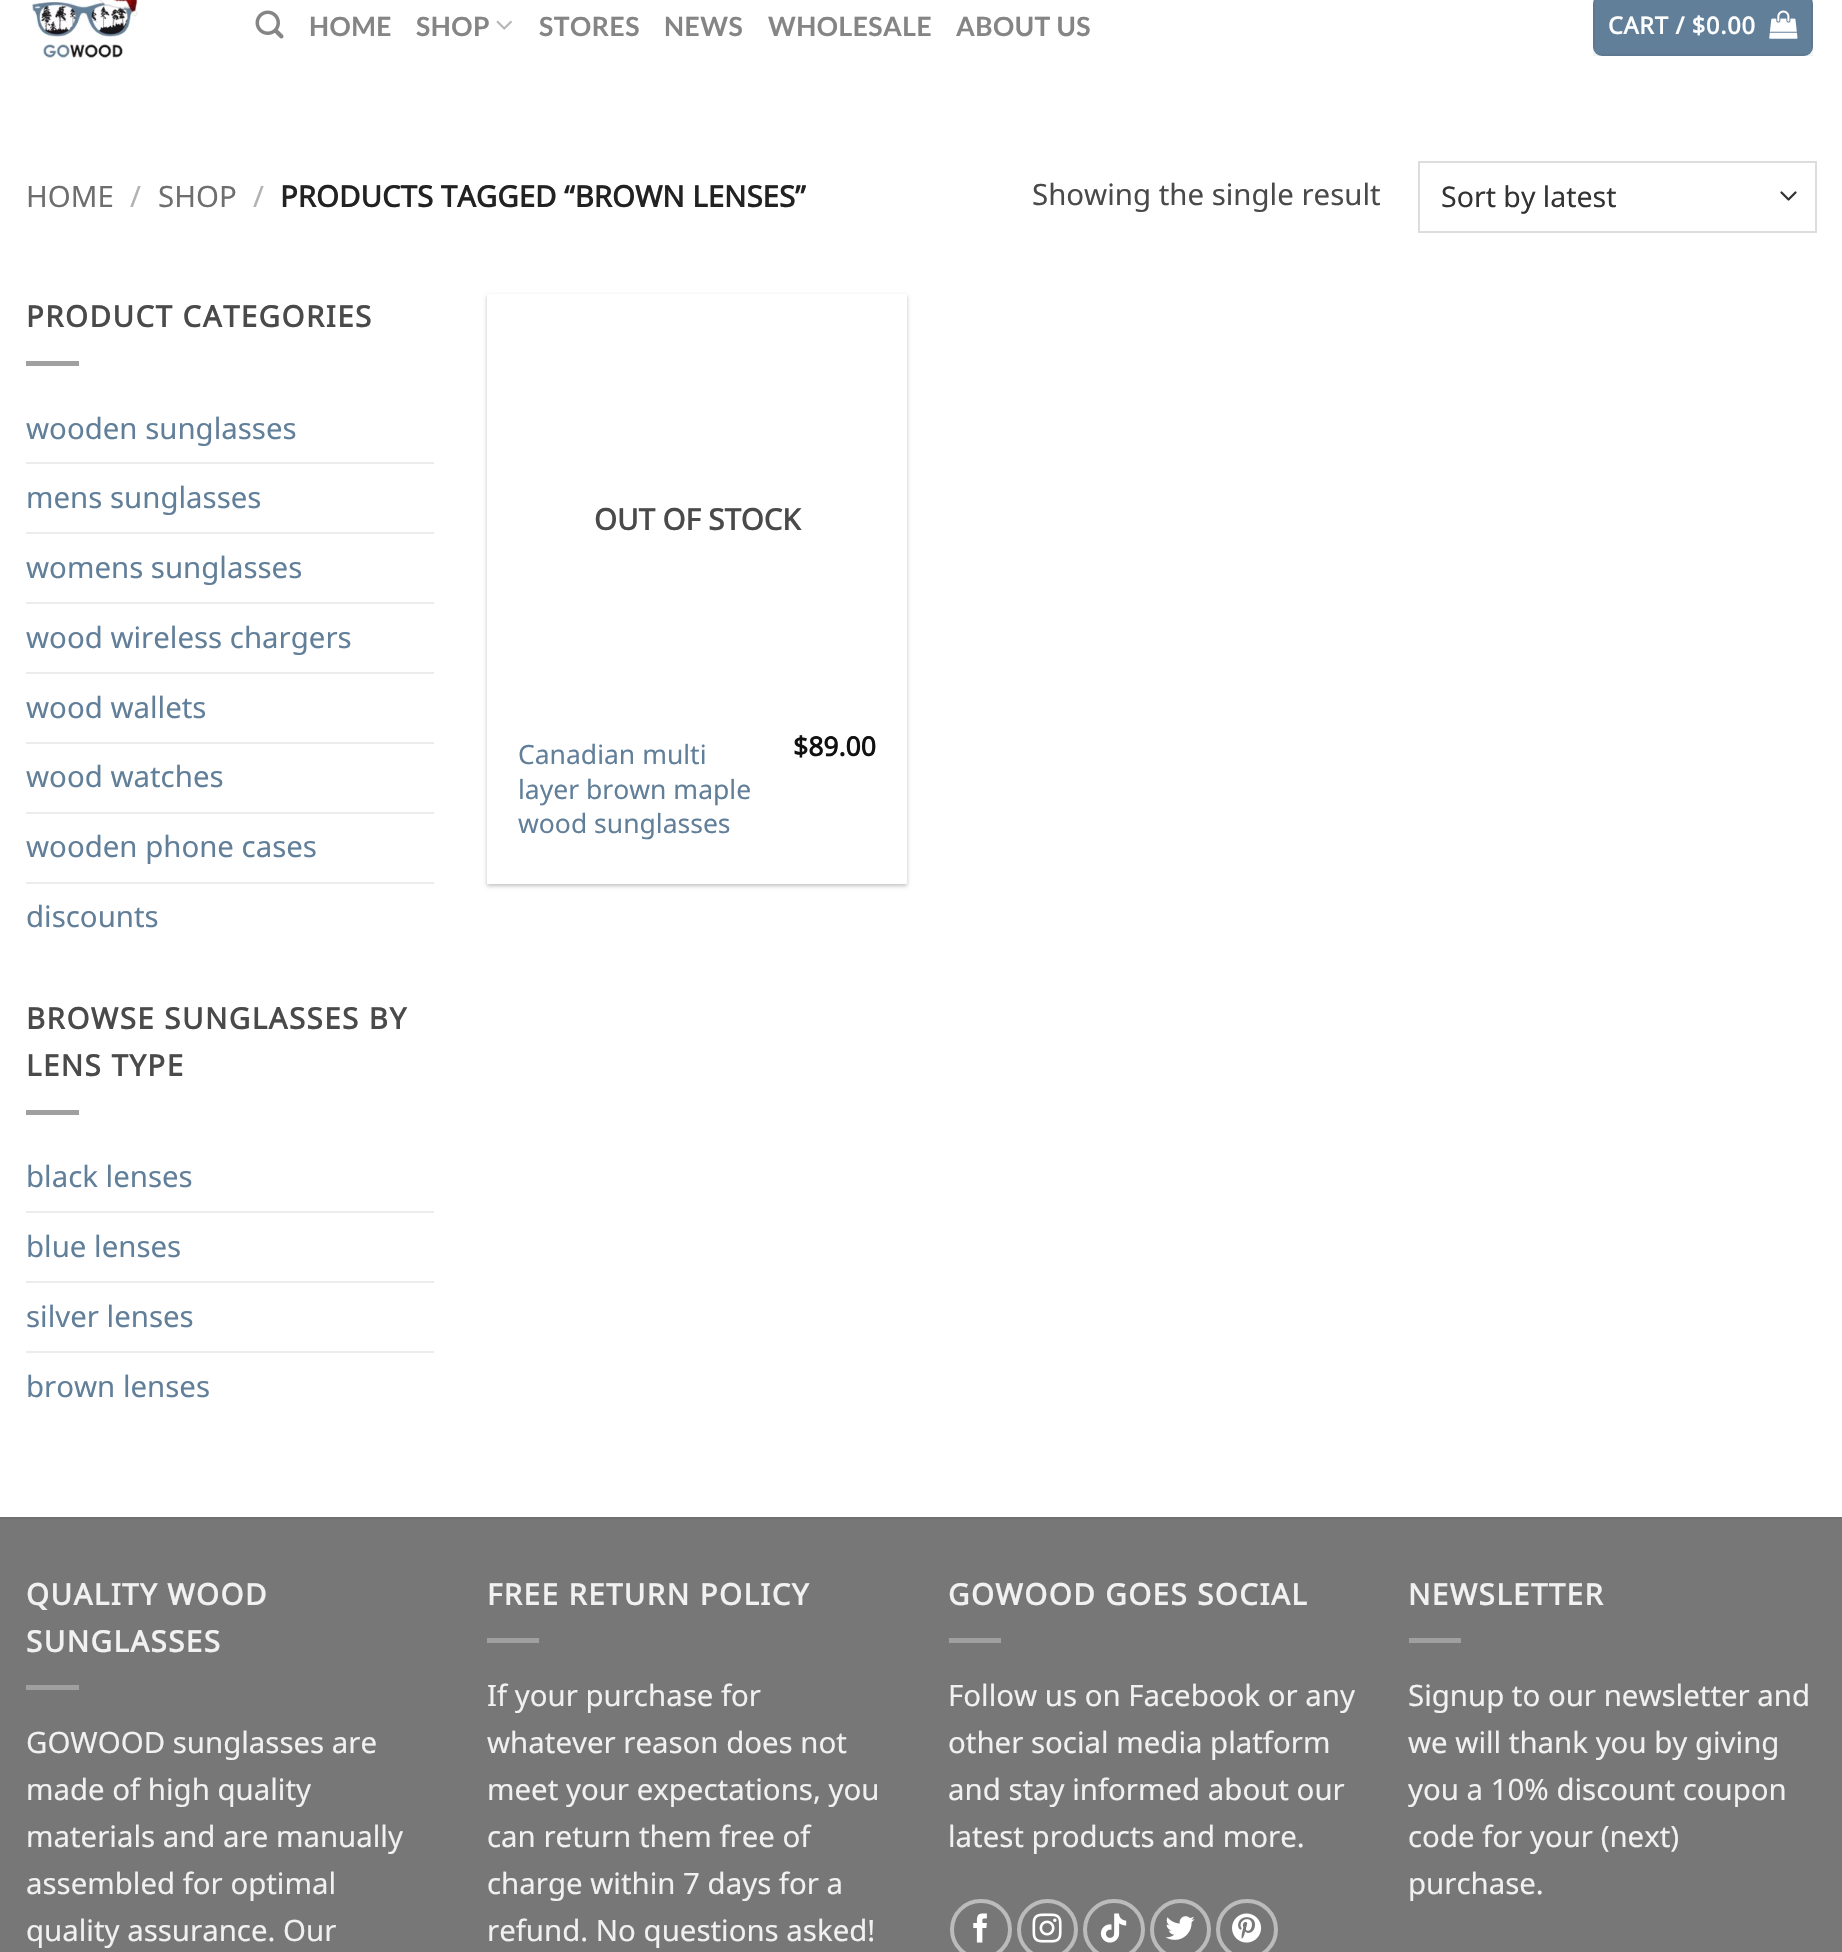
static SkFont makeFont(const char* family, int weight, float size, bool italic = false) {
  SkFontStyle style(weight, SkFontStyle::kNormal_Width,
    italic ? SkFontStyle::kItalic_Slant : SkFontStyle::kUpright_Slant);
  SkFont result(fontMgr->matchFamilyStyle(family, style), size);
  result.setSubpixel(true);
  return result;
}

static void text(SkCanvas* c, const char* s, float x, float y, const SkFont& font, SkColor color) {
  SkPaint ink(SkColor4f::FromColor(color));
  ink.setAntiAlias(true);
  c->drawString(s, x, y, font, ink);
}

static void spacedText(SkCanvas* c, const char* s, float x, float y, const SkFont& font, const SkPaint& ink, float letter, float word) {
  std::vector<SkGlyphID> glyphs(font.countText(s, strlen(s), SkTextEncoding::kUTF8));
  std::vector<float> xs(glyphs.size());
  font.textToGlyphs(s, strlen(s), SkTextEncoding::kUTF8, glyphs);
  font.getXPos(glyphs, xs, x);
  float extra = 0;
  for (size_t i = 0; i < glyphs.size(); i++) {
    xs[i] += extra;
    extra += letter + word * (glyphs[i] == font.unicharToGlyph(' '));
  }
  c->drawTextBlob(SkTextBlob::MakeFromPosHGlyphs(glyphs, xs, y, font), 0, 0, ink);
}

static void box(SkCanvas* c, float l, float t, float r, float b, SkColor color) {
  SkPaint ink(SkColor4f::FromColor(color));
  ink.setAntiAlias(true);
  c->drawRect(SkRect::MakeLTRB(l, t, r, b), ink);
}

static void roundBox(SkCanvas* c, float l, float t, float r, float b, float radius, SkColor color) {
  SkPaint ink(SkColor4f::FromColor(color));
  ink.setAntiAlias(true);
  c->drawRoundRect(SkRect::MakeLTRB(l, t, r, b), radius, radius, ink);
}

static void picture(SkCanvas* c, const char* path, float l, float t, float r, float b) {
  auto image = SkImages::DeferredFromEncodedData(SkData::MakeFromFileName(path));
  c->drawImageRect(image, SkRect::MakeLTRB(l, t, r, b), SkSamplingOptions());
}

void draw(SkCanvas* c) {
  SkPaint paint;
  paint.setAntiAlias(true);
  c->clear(0xffffffff);
  picture(c, "img_01.png", 32, 0, 138, 59);
  picture(c, "img_02.png", 255, 10, 284, 39);
  SkFont face1 = makeFont("Lato", 700, 26.5f);
  paint.setColor(0xff858585);
  spacedText(c, "HOME", 309, 36, face1, paint, 0.5f, 0);
  spacedText(c, "SHOP", 416, 36, face1, paint, 0.5f, 0);
  picture(c, "img_03.png", 496, 20, 512, 30);
  spacedText(c, "STORES", 539, 36, face1, paint, 0.5f, 0);
  spacedText(c, "NEWS", 664, 36, face1, paint, 0.5f, 0);
  spacedText(c, "WHOLESALE", 768, 36, face1, paint, 0.5f, 0);
  spacedText(c, "ABOUT US", 956, 36, face1, paint, 0.5f, 0);
  roundBox(c, 1593, -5, 1813, 56, 9, 0xff627f9a);
  paint.setStyle(SkPaint::kStroke_Style);
  paint.setStrokeWidth(2);
  paint.setColor(0x0d000000);
  c->drawRect(SkRect::MakeLTRB(1594, -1, 1812, 55), paint);
  SkFont face2 = makeFont("Noto Sans", 700, 23.5f);
  paint.setStyle(SkPaint::kFill_Style);
  paint.setColor(0xffffffff);
  spacedText(c, "CART / $0.00", 1608, 34, face2, paint, 0.75f, 0);
  picture(c, "img_04.png", 1769, 10, 1798, 39);
  SkFont face3 = makeFont("Noto Sans", 400, 29.4f);
  text(c, "HOME", 26, 207, face3, 0xff6e6e6e);
  text(c, "/", 130, 207, face3, 0xffb2b2b2);
  text(c, "SHOP", 158, 207, face3, 0xff6e6e6e);
  text(c, "/", 253, 207, face3, 0xffb2b2b2);
  SkFont face4 = makeFont("Noto Sans", 700, 29.4f);
  text(c, "PRODUCTS TAGGED “BROWN LENSES”", 280, 207, face4, 0xff222222);
  text(c, "Showing the single result", 1032, 205, face3, 0xff4a4a4a);
  paint.setStyle(SkPaint::kStroke_Style);
  paint.setStrokeWidth(2.3f);
  paint.setStrokeCap(SkPaint::kRound_Cap);
  paint.setStrokeJoin(SkPaint::kRound_Join);
  paint.setColor(0xff333333);
  c->drawPath(SkPathBuilder().moveTo(1781.5f, 192.5f).lineTo(1788.5f, 199.5f).lineTo(1795.5f, 192.5f).detach(), paint);
  paint.setStrokeWidth(2);
  paint.setStrokeCap(SkPaint::kButt_Cap);
  paint.setStrokeJoin(SkPaint::kMiter_Join);
  paint.setColor(0xffdddddd);
  c->drawRect(SkRect::MakeLTRB(1419, 162, 1816, 232), paint);
  SkFont face5 = makeFont("Noto Sans", 400, 28.5f);
  text(c, "Sort by latest", 1441, 207, face5, 0xff333333);
  paint.setStyle(SkPaint::kFill_Style);
  paint.setColor(0xff4a4a4a);
  spacedText(c, "PRODUCT CATEGORIES", 26, 327, face4, paint, 1.5f, 0);
  box(c, 26, 361, 79, 366, 0xffa0a0a0);
  text(c, "wooden sunglasses", 26, 439, face3, 0xff627f9a);
  box(c, 26, 462, 434, 464, 0xffececec);
  text(c, "mens sunglasses", 26, 508, face3, 0xff627f9a);
  box(c, 26, 532, 434, 534, 0xffececec);
  text(c, "womens sunglasses", 26, 578, face3, 0xff627f9a);
  box(c, 26, 602, 434, 604, 0xffececec);
  text(c, "wood wireless chargers", 26, 648, face3, 0xff627f9a);
  box(c, 26, 672, 434, 674, 0xffececec);
  text(c, "wood wallets", 26, 718, face3, 0xff627f9a);
  box(c, 26, 742, 434, 744, 0xffececec);
  text(c, "wood watches", 26, 787, face3, 0xff627f9a);
  box(c, 26, 812, 434, 814, 0xffececec);
  text(c, "wooden phone cases", 26, 857, face3, 0xff627f9a);
  box(c, 26, 882, 434, 884, 0xffececec);
  text(c, "discounts", 26, 927, face3, 0xff627f9a);
  spacedText(c, "BROWSE SUNGLASSES BY", 26, 1029, face4, paint, 1.5f, 0);
  spacedText(c, "LENS TYPE", 26, 1076, face4, paint, 1.5f, 0);
  box(c, 26, 1110, 79, 1115, 0xffa0a0a0);
  text(c, "black lenses", 26, 1187, face3, 0xff627f9a);
  box(c, 26, 1211, 434, 1213, 0xffececec);
  text(c, "blue lenses", 26, 1257, face3, 0xff627f9a);
  box(c, 26, 1281, 434, 1283, 0xffececec);
  text(c, "silver lenses", 26, 1327, face3, 0xff627f9a);
  box(c, 26, 1351, 434, 1353, 0xffececec);
  text(c, "brown lenses", 26, 1397, face3, 0xff627f9a);
  paint.setColor(0x3d000000);
  paint.setMaskFilter(SkMaskFilter::MakeBlur(kNormal_SkBlurStyle, 2));
  c->drawRect(SkRect::MakeLTRB(487, 296, 907, 886), paint);
  paint.setMaskFilter(nullptr);
  box(c, 487, 294, 907, 884, 0xffffffff);
  text(c, "OUT OF STOCK", 594, 530, face4, 0xff4a4a4a);
  SkFont face6 = makeFont("Noto Sans", 400, 26.5f);
  text(c, "Canadian multi", 518, 764, face6, 0xff627f9a);
  text(c, "layer brown maple", 518, 799, face6, 0xff627f9a);
  text(c, "wood sunglasses", 518, 833, face6, 0xff627f9a);
  SkFont face7 = makeFont("Noto Sans", 700, 26.5f);
  text(c, "$89.00", 793, 756, face7, 0xff111111);
  box(c, 0, 1519, 1842, 1952, 0xff777777);
  box(c, 0, 1517, 1842, 1519, 0xff717171);
  paint.setColor(0xfff1f1f1);
  spacedText(c, "QUALITY WOOD", 26, 1605, face4, paint, 1.5f, 0);
  spacedText(c, "SUNGLASSES", 26, 1652, face4, paint, 1.5f, 0);
  box(c, 26, 1685, 79, 1690, 0xffa0a0a0);
  text(c, "GOWOOD sunglasses are", 26, 1753, face3, 0xfff1f1f1);
  text(c, "made of high quality", 26, 1800, face3, 0xfff1f1f1);
  text(c, "materials and are manually", 26, 1847, face3, 0xfff1f1f1);
  text(c, "assembled for optimal", 26, 1894, face3, 0xfff1f1f1);
  text(c, "quality assurance. Our", 26, 1941, face3, 0xfff1f1f1);
  spacedText(c, "FREE RETURN POLICY", 487, 1605, face4, paint, 1.5f, 0);
  box(c, 487, 1638, 539, 1643, 0xffa0a0a0);
  text(c, "If your purchase for", 487, 1706, face3, 0xfff1f1f1);
  text(c, "whatever reason does not", 487, 1753, face3, 0xfff1f1f1);
  text(c, "meet your expectations, you", 487, 1800, face3, 0xfff1f1f1);
  text(c, "can return them free of", 487, 1847, face3, 0xfff1f1f1);
  text(c, "charge within 7 days for a", 487, 1894, face3, 0xfff1f1f1);
  text(c, "refund. No questions asked!", 487, 1941, face3, 0xfff1f1f1);
  spacedText(c, "GOWOOD GOES SOCIAL", 948, 1605, face4, paint, 1.5f, 0);
  box(c, 949, 1638, 1001, 1643, 0xffa0a0a0);
  text(c, "Follow us on Facebook or any", 948, 1706, face3, 0xfff1f1f1);
  text(c, "other social media platform", 948, 1753, face3, 0xfff1f1f1);
  text(c, "and stay informed about our", 948, 1800, face3, 0xfff1f1f1);
  text(c, "latest products and more.", 948, 1847, face3, 0xfff1f1f1);
  paint.setStyle(SkPaint::kStroke_Style);
  paint.setStrokeWidth(4);
  paint.setColor(0xffbbbbbb);
  c->drawRoundRect(SkRect::MakeLTRB(952, 1901, 1010, 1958), 28.5f, 28.5f, paint);
  picture(c, "img_05.png", 973, 1913, 987, 1943);
  c->drawCircle(1047.5f, 1929.5f, 28.5f, paint);
  picture(c, "img_06.png", 1032, 1913, 1062, 1943);
  c->drawRoundRect(SkRect::MakeLTRB(1085, 1901, 1143, 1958), 28.5f, 28.5f, paint);
  picture(c, "img_07.png", 1100, 1913, 1127, 1943);
  c->drawCircle(1180.5f, 1929.5f, 28.5f, paint);
  picture(c, "img_08.png", 1165, 1916, 1195, 1940);
  c->drawRoundRect(SkRect::MakeLTRB(1218, 1901, 1276, 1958), 28.5f, 28.5f, paint);
  picture(c, "img_09.png", 1232, 1913, 1262, 1943);
  paint.setStyle(SkPaint::kFill_Style);
  paint.setColor(0xfff1f1f1);
  spacedText(c, "NEWSLETTER", 1408, 1605, face4, paint, 1.5f, 0);
  box(c, 1409, 1638, 1461, 1643, 0xffa0a0a0);
  text(c, "Signup to our newsletter and", 1408, 1706, face3, 0xfff1f1f1);
  text(c, "we will thank you by giving", 1408, 1753, face3, 0xfff1f1f1);
  text(c, "you a 10% discount coupon", 1408, 1800, face3, 0xfff1f1f1);
  text(c, "code for your (next)", 1408, 1847, face3, 0xfff1f1f1);
  text(c, "purchase.", 1408, 1894, face3, 0xfff1f1f1);
}
